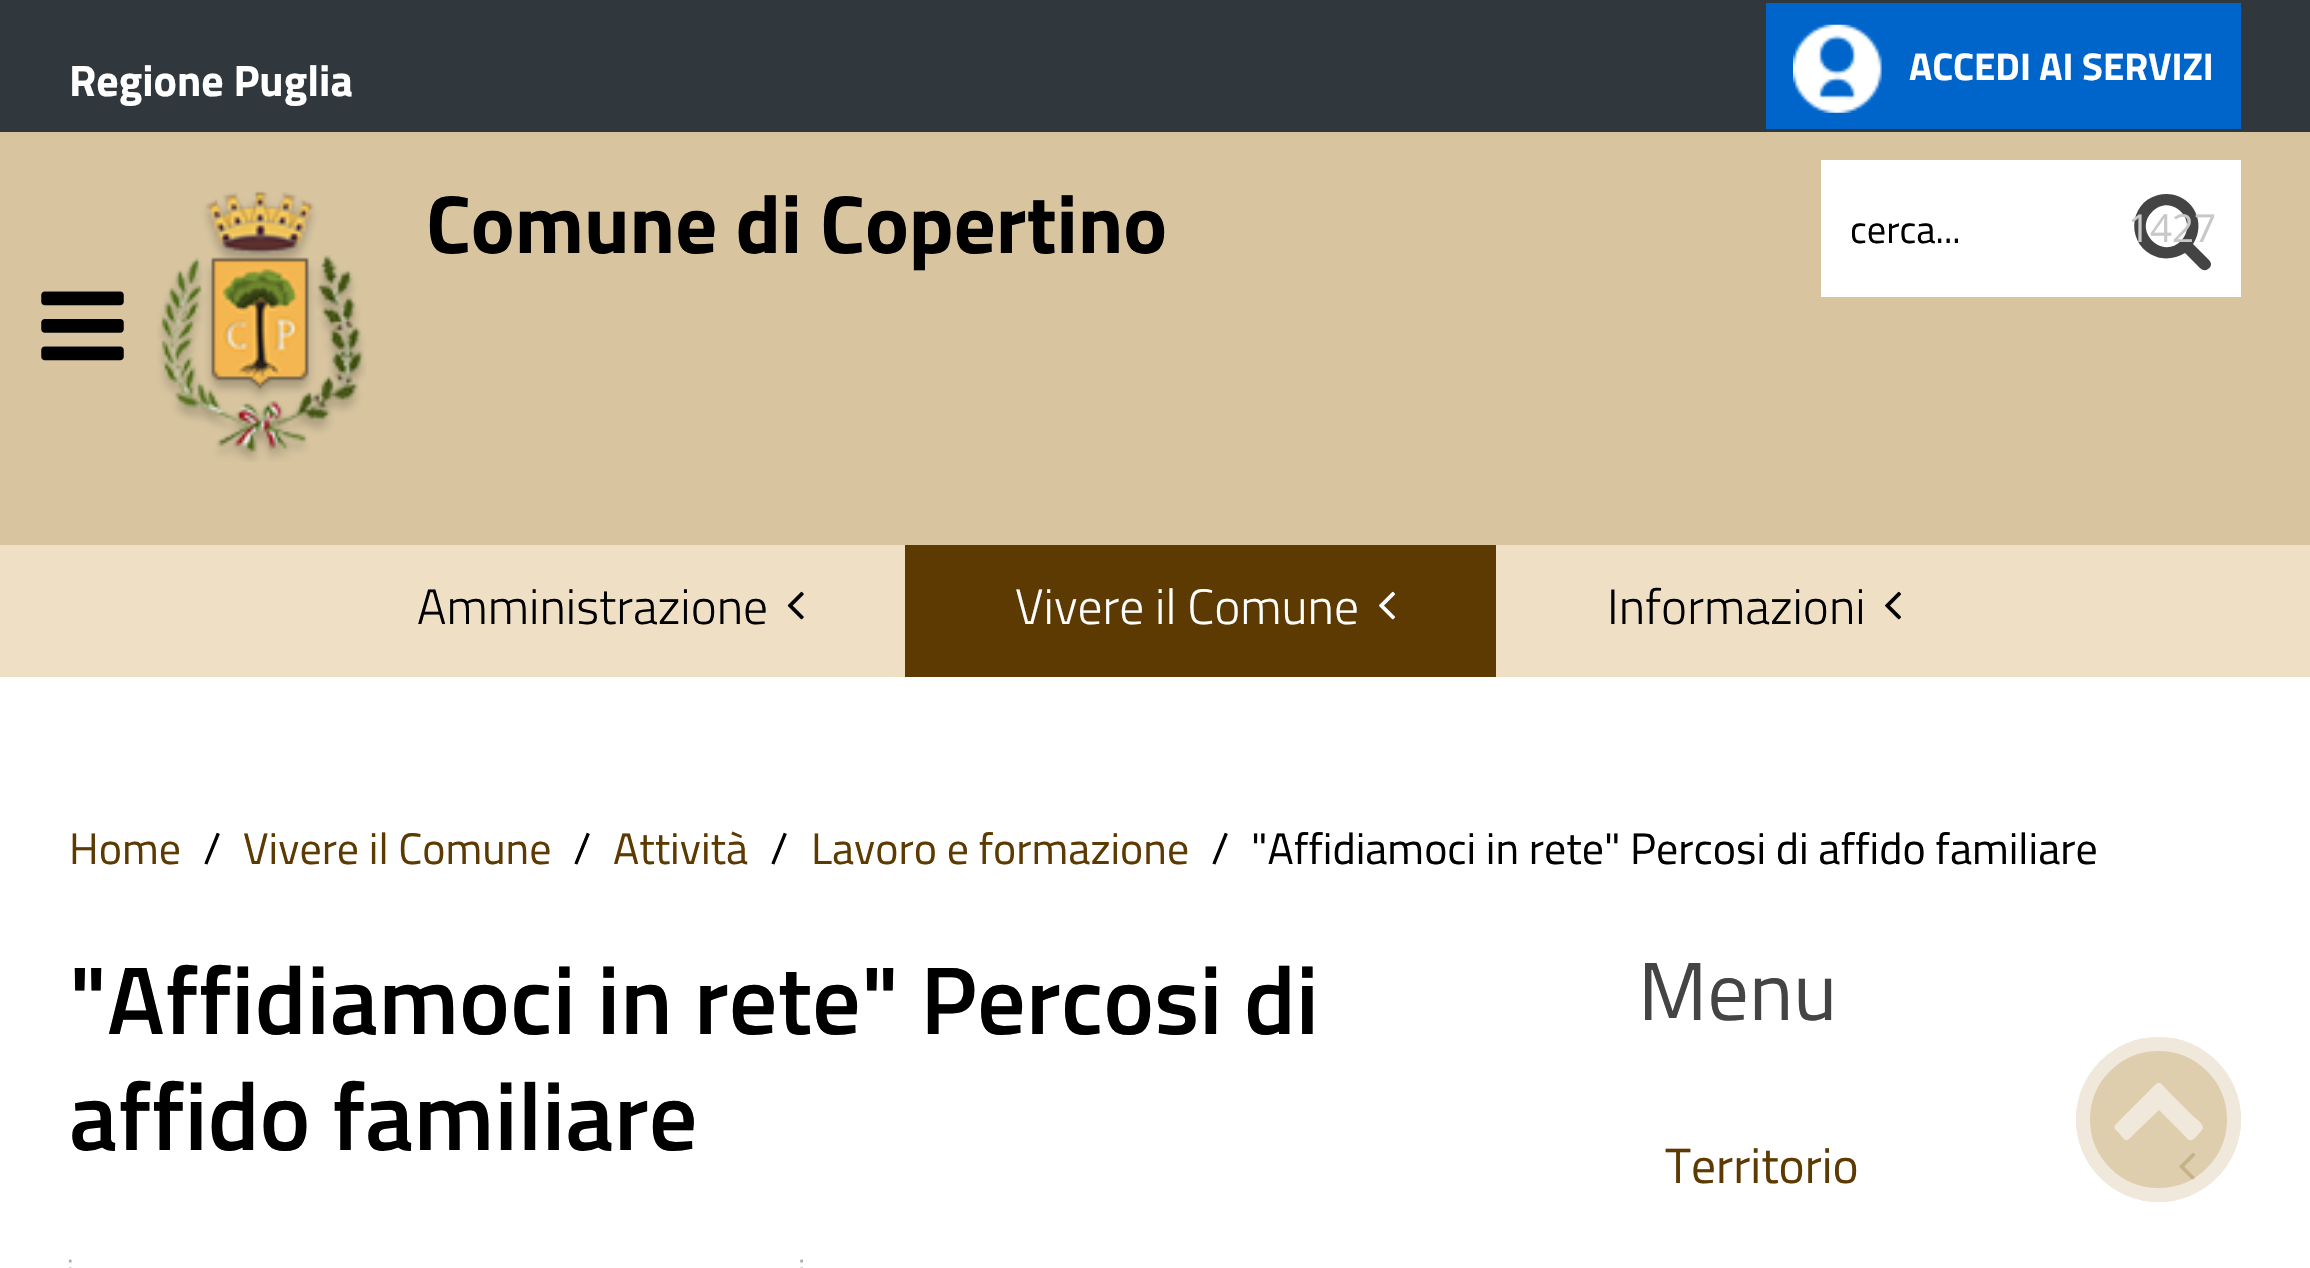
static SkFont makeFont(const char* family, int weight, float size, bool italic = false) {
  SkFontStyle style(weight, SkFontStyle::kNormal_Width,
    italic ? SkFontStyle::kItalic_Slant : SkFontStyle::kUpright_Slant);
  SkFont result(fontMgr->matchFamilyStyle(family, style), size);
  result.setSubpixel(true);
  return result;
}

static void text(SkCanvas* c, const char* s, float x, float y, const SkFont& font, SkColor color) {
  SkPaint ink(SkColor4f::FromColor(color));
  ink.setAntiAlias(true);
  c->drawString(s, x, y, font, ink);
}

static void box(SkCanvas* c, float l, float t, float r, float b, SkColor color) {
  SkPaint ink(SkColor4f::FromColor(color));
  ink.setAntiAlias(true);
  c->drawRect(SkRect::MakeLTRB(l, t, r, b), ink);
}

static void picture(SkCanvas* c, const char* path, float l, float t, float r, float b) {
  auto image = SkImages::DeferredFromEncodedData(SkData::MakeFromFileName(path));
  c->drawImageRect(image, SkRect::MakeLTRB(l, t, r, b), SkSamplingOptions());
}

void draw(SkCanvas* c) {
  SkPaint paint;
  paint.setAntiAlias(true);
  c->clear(0xffffffff);
  box(c, 0, 132, 2310, 545, 0xffd8c5a0);
  box(c, 0, 0, 2310, 132, 0xff30373d);
  SkFont face1 = makeFont("Titillium Web", 700, 44);
  text(c, "Regione Puglia", 69, 96, face1, 0xffffffff);
  box(c, 1766, 3, 2241, 129, 0xff0065cb);
  picture(c, "img_01.png", 1793, 24, 1882, 113);
  SkFont face2 = makeFont("Titillium Web", 700, 38.5f);
  text(c, "ACCEDI AI SERVIZI", 1909, 80, face2, 0xffffffff);
  picture(c, "img_02.png", 157, 191, 367, 462);
  SkFont face3 = makeFont("Titillium Web", 700, 82.5f);
  text(c, "Comune di Copertino", 426, 253, face3, 0xff000000);
  box(c, 1821, 160, 2241, 297, 0xffffffff);
  paint.setColor(0xff444444);
  c->drawPath(SkPathBuilder().moveTo(2181, 241).cubicTo(2200, 221, 2171, 192, 2152, 212).cubicTo(2133, 231, 2162, 260, 2181, 241).close().moveTo(2211, 264).cubicTo(2211, 266, 2210, 268, 2208, 269).cubicTo(2203, 273, 2198, 266, 2195, 263).lineTo(2185, 253).cubicTo(2177, 258, 2166, 260, 2157, 257).cubicTo(2126, 247, 2127, 203, 2158, 195).cubicTo(2166, 193, 2174, 194, 2180, 197).cubicTo(2198, 205, 2204, 228, 2193, 244).lineTo(2209, 260).cubicTo(2210, 261, 2211, 263, 2211, 264).close().detach(), paint);
  SkFont face4 = makeFont("Titillium Web", 400, 38.5f);
  text(c, "cerca...", 1850, 243, face4, 0xff000000);
  SkFont face5 = makeFont("Open Sans", 400, 38.5f);
  text(c, "1427", 2128, 242, face5, 0xffc8c8c8);
  picture(c, "img_03.png", 41, 291, 124, 361);
  box(c, 0, 545, 2310, 677, 0xffefe0c5);
  SkFont face6 = makeFont("Titillium Web", 300, 49.5f);
  text(c, "Amministrazione", 417, 624, face6, 0xff000000);
  picture(c, "img_04.png", 787, 591, 804, 620);
  box(c, 905, 545, 1496, 677, 0xff5d3a02);
  text(c, "Vivere il Comune", 1015, 624, face6, 0xffffffff);
  picture(c, "img_05.png", 1379, 591, 1395, 620);
  text(c, "Informazioni", 1607, 624, face6, 0xff000000);
  picture(c, "img_06.png", 1885, 591, 1901, 620);
  SkFont face7 = makeFont("Titillium Web", 400, 44);
  text(c, "Home", 69, 864, face7, 0xff5d3a02);
  text(c, "/", 203, 864, face7, 0xff000000);
  text(c, "Vivere il Comune", 243, 864, face7, 0xff5d3a02);
  text(c, "/", 573, 864, face7, 0xff000000);
  text(c, "Attività", 613, 864, face7, 0xff5d3a02);
  text(c, "/", 770, 864, face7, 0xff000000);
  text(c, "Lavoro e formazione", 811, 864, face7, 0xff5d3a02);
  text(c, "/", 1211, 864, face7, 0xff000000);
  text(c, "\"Affidiamoci in rete\" Percosi di affido familiare", 1251, 864, face7, 0xff000000);
  SkFont face8 = makeFont("Titillium Web", 600, 96.25f);
  text(c, "\"Affidiamoci in rete\" Percosi di", 69, 1034, face8, 0xff000000);
  text(c, "affido familiare", 69, 1150, face8, 0xff000000);
  picture(c, "img_07.png", 68, 1259, 72, 1268);
  picture(c, "img_08.png", 800, 1259, 803, 1268);
  SkFont face9 = makeFont("Titillium Web", 400, 82.5f);
  text(c, "Menu", 1638, 1020, face9, 0xff444444);
  SkFont face10 = makeFont("Titillium Web", 400, 49.5f);
  text(c, "Territorio", 1665, 1183, face10, 0xff5d3a02);
  picture(c, "img_09.png", 2179, 1152, 2196, 1181);
  paint.setColor(0xd9d8c5a0);
  c->drawCircle(2158.5f, 1119.5f, 82.5f, paint);
  paint.setStyle(SkPaint::kStroke_Style);
  paint.setStrokeWidth(14);
  paint.setColor(0x8cffffff);
  c->drawCircle(2158.5f, 1119.5f, 75.5f, paint);
  paint.setStyle(SkPaint::kFill_Style);
  paint.setColor(0xfff0e9db);
  c->drawPath(SkPathBuilder().moveTo(2202, 1130).lineTo(2195, 1138).cubicTo(2189, 1143, 2188, 1139, 2183, 1134).lineTo(2159, 1110).lineTo(2134, 1134).cubicTo(2125, 1144, 2126, 1141, 2117, 1131).cubicTo(2111, 1126, 2117, 1124, 2122, 1118).lineTo(2149, 1091).cubicTo(2160, 1080, 2158, 1080, 2168, 1091).lineTo(2195, 1118).cubicTo(2197, 1119, 2206, 1126, 2202, 1130).close().detach(), paint);
}
